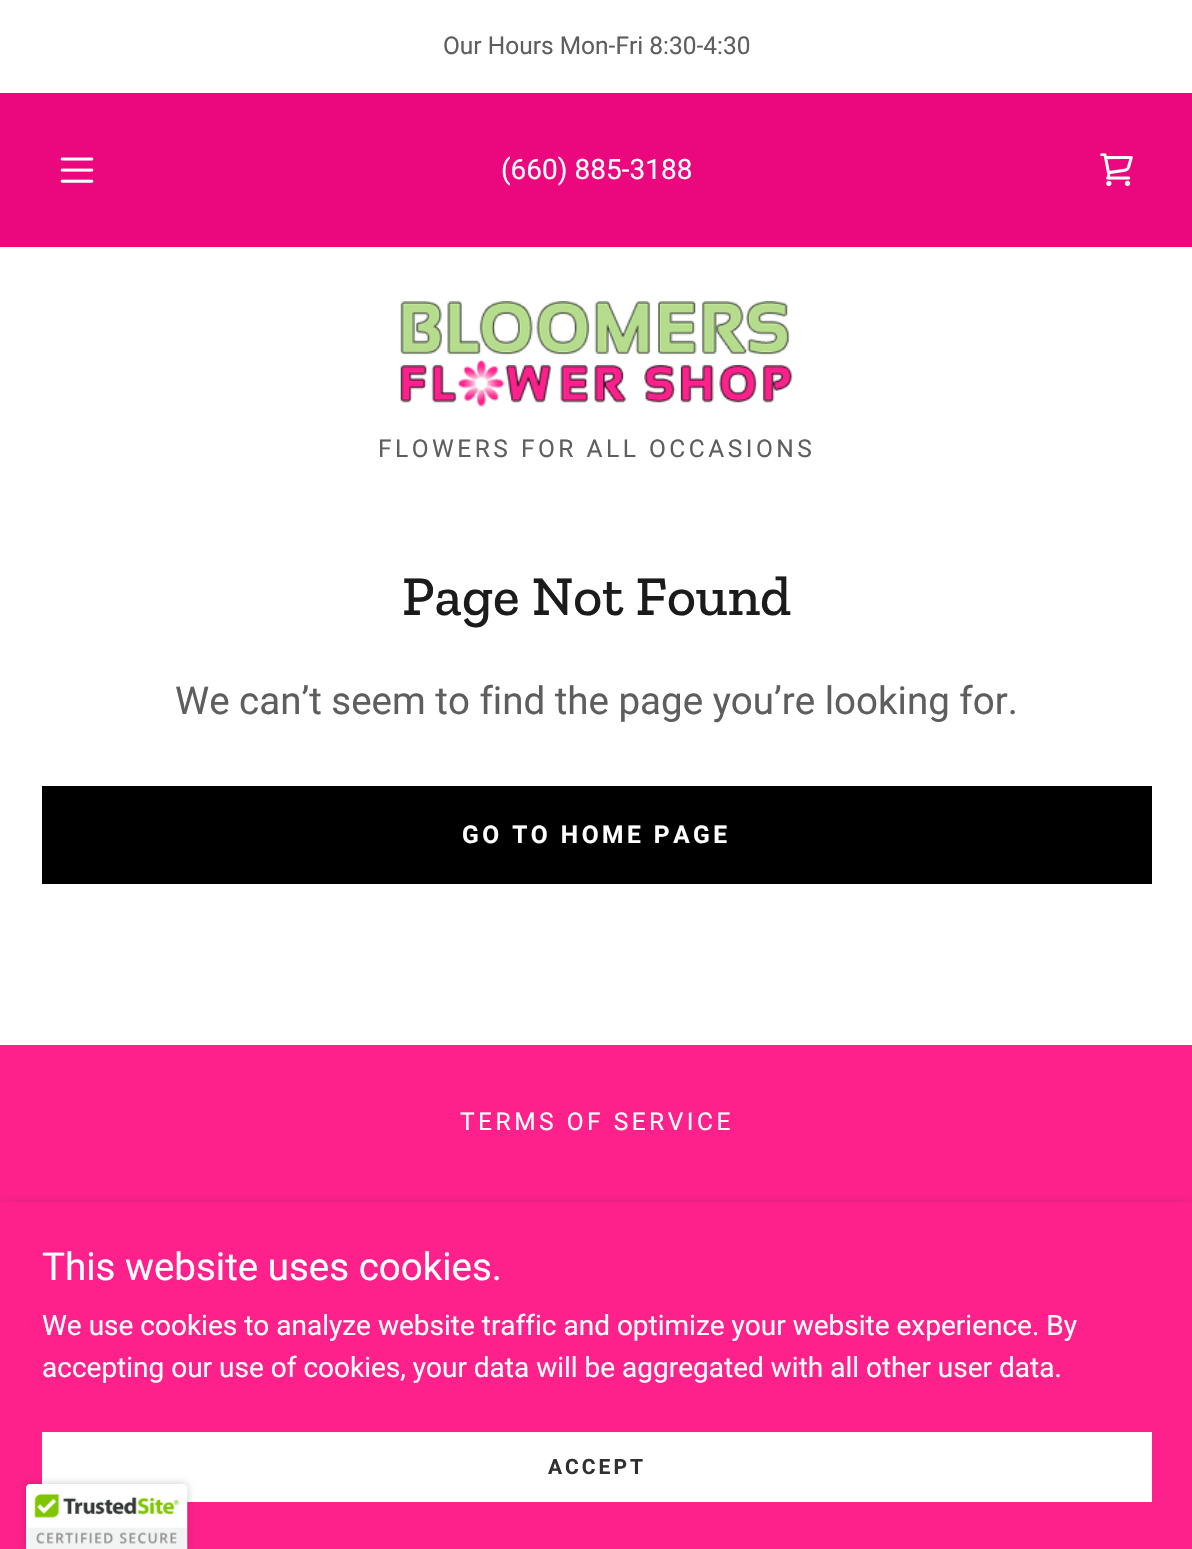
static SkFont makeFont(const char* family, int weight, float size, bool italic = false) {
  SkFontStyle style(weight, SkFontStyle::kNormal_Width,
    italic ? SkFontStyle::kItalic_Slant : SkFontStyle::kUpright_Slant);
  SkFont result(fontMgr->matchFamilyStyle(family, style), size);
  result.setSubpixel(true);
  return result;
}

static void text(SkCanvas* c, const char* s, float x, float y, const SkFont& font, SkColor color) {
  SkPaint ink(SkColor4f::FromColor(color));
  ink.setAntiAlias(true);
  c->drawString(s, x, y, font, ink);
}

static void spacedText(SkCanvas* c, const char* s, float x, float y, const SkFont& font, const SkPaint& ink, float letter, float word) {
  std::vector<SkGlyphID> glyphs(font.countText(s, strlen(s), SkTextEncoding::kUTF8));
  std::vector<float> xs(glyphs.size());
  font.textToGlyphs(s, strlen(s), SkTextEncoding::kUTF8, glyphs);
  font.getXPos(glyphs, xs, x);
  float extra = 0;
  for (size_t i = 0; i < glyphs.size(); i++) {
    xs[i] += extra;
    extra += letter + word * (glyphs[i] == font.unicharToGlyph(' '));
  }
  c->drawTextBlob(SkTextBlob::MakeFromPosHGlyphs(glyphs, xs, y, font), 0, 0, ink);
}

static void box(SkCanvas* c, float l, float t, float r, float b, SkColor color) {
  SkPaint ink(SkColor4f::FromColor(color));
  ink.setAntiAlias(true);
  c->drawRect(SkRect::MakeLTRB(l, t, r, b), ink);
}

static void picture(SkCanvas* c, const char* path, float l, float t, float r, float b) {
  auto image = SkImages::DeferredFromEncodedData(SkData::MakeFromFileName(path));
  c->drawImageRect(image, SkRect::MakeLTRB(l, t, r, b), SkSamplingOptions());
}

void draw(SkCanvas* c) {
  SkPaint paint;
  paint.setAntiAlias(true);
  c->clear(0xfffe218b);
  box(c, 0, 0, 1192, 1045, 0xffffffff);
  SkFont face1 = makeFont("Roboto", 400, 24.5f);
  text(c, "Our Hours Mon-Fri 8:30-4:30", 443, 54, face1, 0xff5e5e5e);
  box(c, 0, 93, 1192, 247, 0xffeb077e);
  picture(c, "img_01.png", 60, 157, 94, 183);
  SkFont face2 = makeFont("Roboto", 400, 28);
  text(c, "(660) 885-3188", 501, 179, face2, 0xffffffff);
  picture(c, "img_02.png", 1100, 153, 1133, 187);
  picture(c, "img_03.png", 400, 301, 793, 407);
  paint.setColor(0xff5e5e5e);
  spacedText(c, "FLOWERS FOR ALL OCCASIONS", 378, 457, face1, paint, 3.5f, 0);
  SkFont face3 = makeFont("Zilla Slab", 500, 56);
  text(c, "Page Not Found", 402, 615, face3, 0xff1b1b1b);
  SkFont face4 = makeFont("Roboto", 400, 38.5f);
  text(c, "We can’t seem to find the page you’re looking for.", 175, 714, face4, 0xff5e5e5e);
  box(c, 42, 786, 1152, 884, 0xff000000);
  SkFont face5 = makeFont("Roboto", 700, 24.5f);
  paint.setColor(0xffffffff);
  spacedText(c, "GO TO HOME PAGE", 462, 843, face5, paint, 3.5f, 0);
  spacedText(c, "TERMS OF SERVICE", 460, 1130, face1, paint, 3.5f, 0);
  paint.setColor(0x4d000000);
  paint.setMaskFilter(SkMaskFilter::MakeBlur(kNormal_SkBlurStyle, 5));
  c->drawRect(SkRect::MakeLTRB(0, 1206, 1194, 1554), paint);
  paint.setMaskFilter(nullptr);
  box(c, 0, 1202, 1192, 1549, 0xfffe218b);
  text(c, "This website uses cookies.", 42, 1280, face4, 0xffffffff);
  text(c, "We use cookies to analyze website traffic and optimize your website experience. By", 42, 1335, face2, 0xffffffff);
  text(c, "accepting our use of cookies, your data will be aggregated with all other user data.", 42, 1377, face2, 0xffffffff);
  box(c, 42, 1432, 1152, 1502, 0xffffffff);
  SkFont face6 = makeFont("Roboto", 700, 21);
  paint.setColor(0xff303030);
  spacedText(c, "ACCEPT", 548, 1474, face6, paint, 3, 0);
  paint.setColor(0x33000000);
  paint.setMaskFilter(SkMaskFilter::MakeBlur(kNormal_SkBlurStyle, 4.5f));
  c->drawRoundRect(SkRect::MakeLTRB(26, 1484, 187, 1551), 4, 4, paint);
  paint.setMaskFilter(nullptr);
  paint.setColor(0xffffffff);
  c->drawPath(SkPathBuilder().moveTo(30, 1484).lineTo(183, 1484).cubicTo(185, 1484, 187, 1486, 187, 1488).lineTo(187, 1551).lineTo(26, 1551).lineTo(26, 1488).cubicTo(26, 1486, 28, 1484, 30, 1484).close().detach(), paint);
  picture(c, "img_04.png", 26, 1484, 188, 1549);
}
